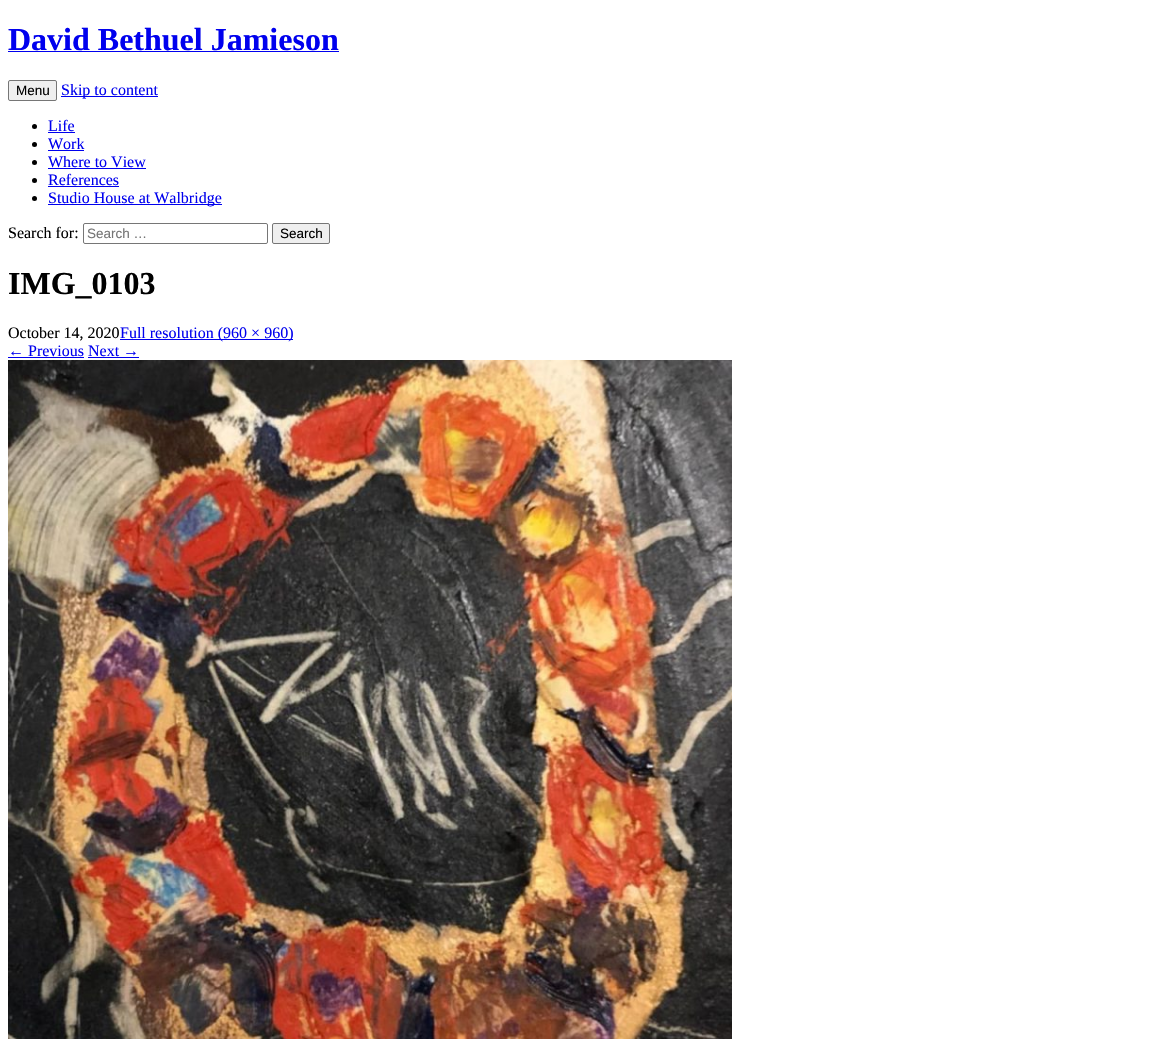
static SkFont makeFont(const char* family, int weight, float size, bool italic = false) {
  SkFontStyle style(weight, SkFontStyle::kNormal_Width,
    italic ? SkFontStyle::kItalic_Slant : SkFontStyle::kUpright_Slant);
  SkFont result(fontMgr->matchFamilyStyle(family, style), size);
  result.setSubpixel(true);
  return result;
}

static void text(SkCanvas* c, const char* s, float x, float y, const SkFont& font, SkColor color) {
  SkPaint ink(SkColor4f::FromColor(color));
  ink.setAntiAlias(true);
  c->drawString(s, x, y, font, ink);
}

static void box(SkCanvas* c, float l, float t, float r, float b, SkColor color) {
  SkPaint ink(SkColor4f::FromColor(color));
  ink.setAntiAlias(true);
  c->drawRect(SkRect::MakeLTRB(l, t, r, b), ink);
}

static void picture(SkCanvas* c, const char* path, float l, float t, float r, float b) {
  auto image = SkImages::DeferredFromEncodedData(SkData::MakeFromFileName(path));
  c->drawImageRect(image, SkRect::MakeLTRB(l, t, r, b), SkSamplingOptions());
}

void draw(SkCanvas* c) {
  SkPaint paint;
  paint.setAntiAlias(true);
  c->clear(0xffffffff);
  SkFont face1 = makeFont("Liberation Serif", 700, 32);
  text(c, "David Bethuel Jamieson", 8, 50, face1, 0xff0000ee);
  box(c, 8, 51, 339, 52, 0xff0000ee);
  paint.setColor(0xffefefef);
  c->drawRoundRect(SkRect::MakeLTRB(8.5f, 80.5f, 56.5f, 100.5f), 1.5f, 1.5f, paint);
  paint.setStyle(SkPaint::kStroke_Style);
  paint.setStrokeWidth(1);
  paint.setColor(0xff767676);
  c->drawRoundRect(SkRect::MakeLTRB(8.5f, 80.5f, 56.5f, 100.5f), 1.5f, 1.5f, paint);
  SkFont face2 = makeFont("Liberation Sans", 400, 13.5f);
  text(c, "Menu", 16, 95, face2, 0xff000000);
  box(c, 61, 96, 158, 97, 0xff0000ee);
  SkFont face3 = makeFont("Liberation Serif", 400, 16);
  text(c, "Skip to content", 61, 95, face3, 0xff0000ee);
  paint.setStyle(SkPaint::kFill_Style);
  paint.setColor(0xff000000);
  c->drawCircle(34.5f, 126.5f, 2.5f, paint);
  text(c, "Life", 48, 131, face3, 0xff0000ee);
  box(c, 48, 132, 75, 133, 0xff0000ee);
  c->drawCircle(34.5f, 144.5f, 2.5f, paint);
  text(c, "Work", 48, 149, face3, 0xff0000ee);
  box(c, 48, 150, 84, 151, 0xff0000ee);
  c->drawCircle(34.5f, 162.5f, 2.5f, paint);
  text(c, "Where to View", 48, 167, face3, 0xff0000ee);
  box(c, 48, 168, 146, 169, 0xff0000ee);
  c->drawCircle(34.5f, 180.5f, 2.5f, paint);
  text(c, "References", 48, 185, face3, 0xff0000ee);
  box(c, 48, 186, 119, 187, 0xff0000ee);
  c->drawCircle(34.5f, 198.5f, 2.5f, paint);
  box(c, 48, 204, 222, 205, 0xff0000ee);
  text(c, "Studio House at Walbridge", 48, 203, face3, 0xff0000ee);
  text(c, "Search for:", 8, 238, face3, 0xff000000);
  paint.setStyle(SkPaint::kStroke_Style);
  paint.setColor(0xff767676);
  c->drawRoundRect(SkRect::MakeLTRB(83.5f, 223.5f, 267.5f, 243.5f), 1.5f, 1.5f, paint);
  text(c, "Search …", 87, 238, face2, 0xff757575);
  paint.setStyle(SkPaint::kFill_Style);
  paint.setColor(0xffefefef);
  c->drawRoundRect(SkRect::MakeLTRB(272.5f, 223.5f, 329.5f, 243.5f), 1.5f, 1.5f, paint);
  paint.setStyle(SkPaint::kStroke_Style);
  paint.setColor(0xff767676);
  c->drawRoundRect(SkRect::MakeLTRB(272.5f, 223.5f, 329.5f, 243.5f), 1.5f, 1.5f, paint);
  text(c, "Search", 280, 238, face2, 0xff000000);
  text(c, "IMG_0103", 8, 294, face1, 0xff000000);
  text(c, "October 14, 2020", 8, 338, face3, 0xff000000);
  box(c, 120, 339, 293, 340, 0xff0000ee);
  text(c, "Full resolution (960 × 960)", 120, 338, face3, 0xff0000ee);
  text(c, "← Previous Next →", 8, 356, face3, 0xff0000ee);
  box(c, 8, 357, 84, 358, 0xff0000ee);
  box(c, 88, 357, 139, 358, 0xff0000ee);
  picture(c, "img_01.png", 8, 360, 732, 1039);
}
